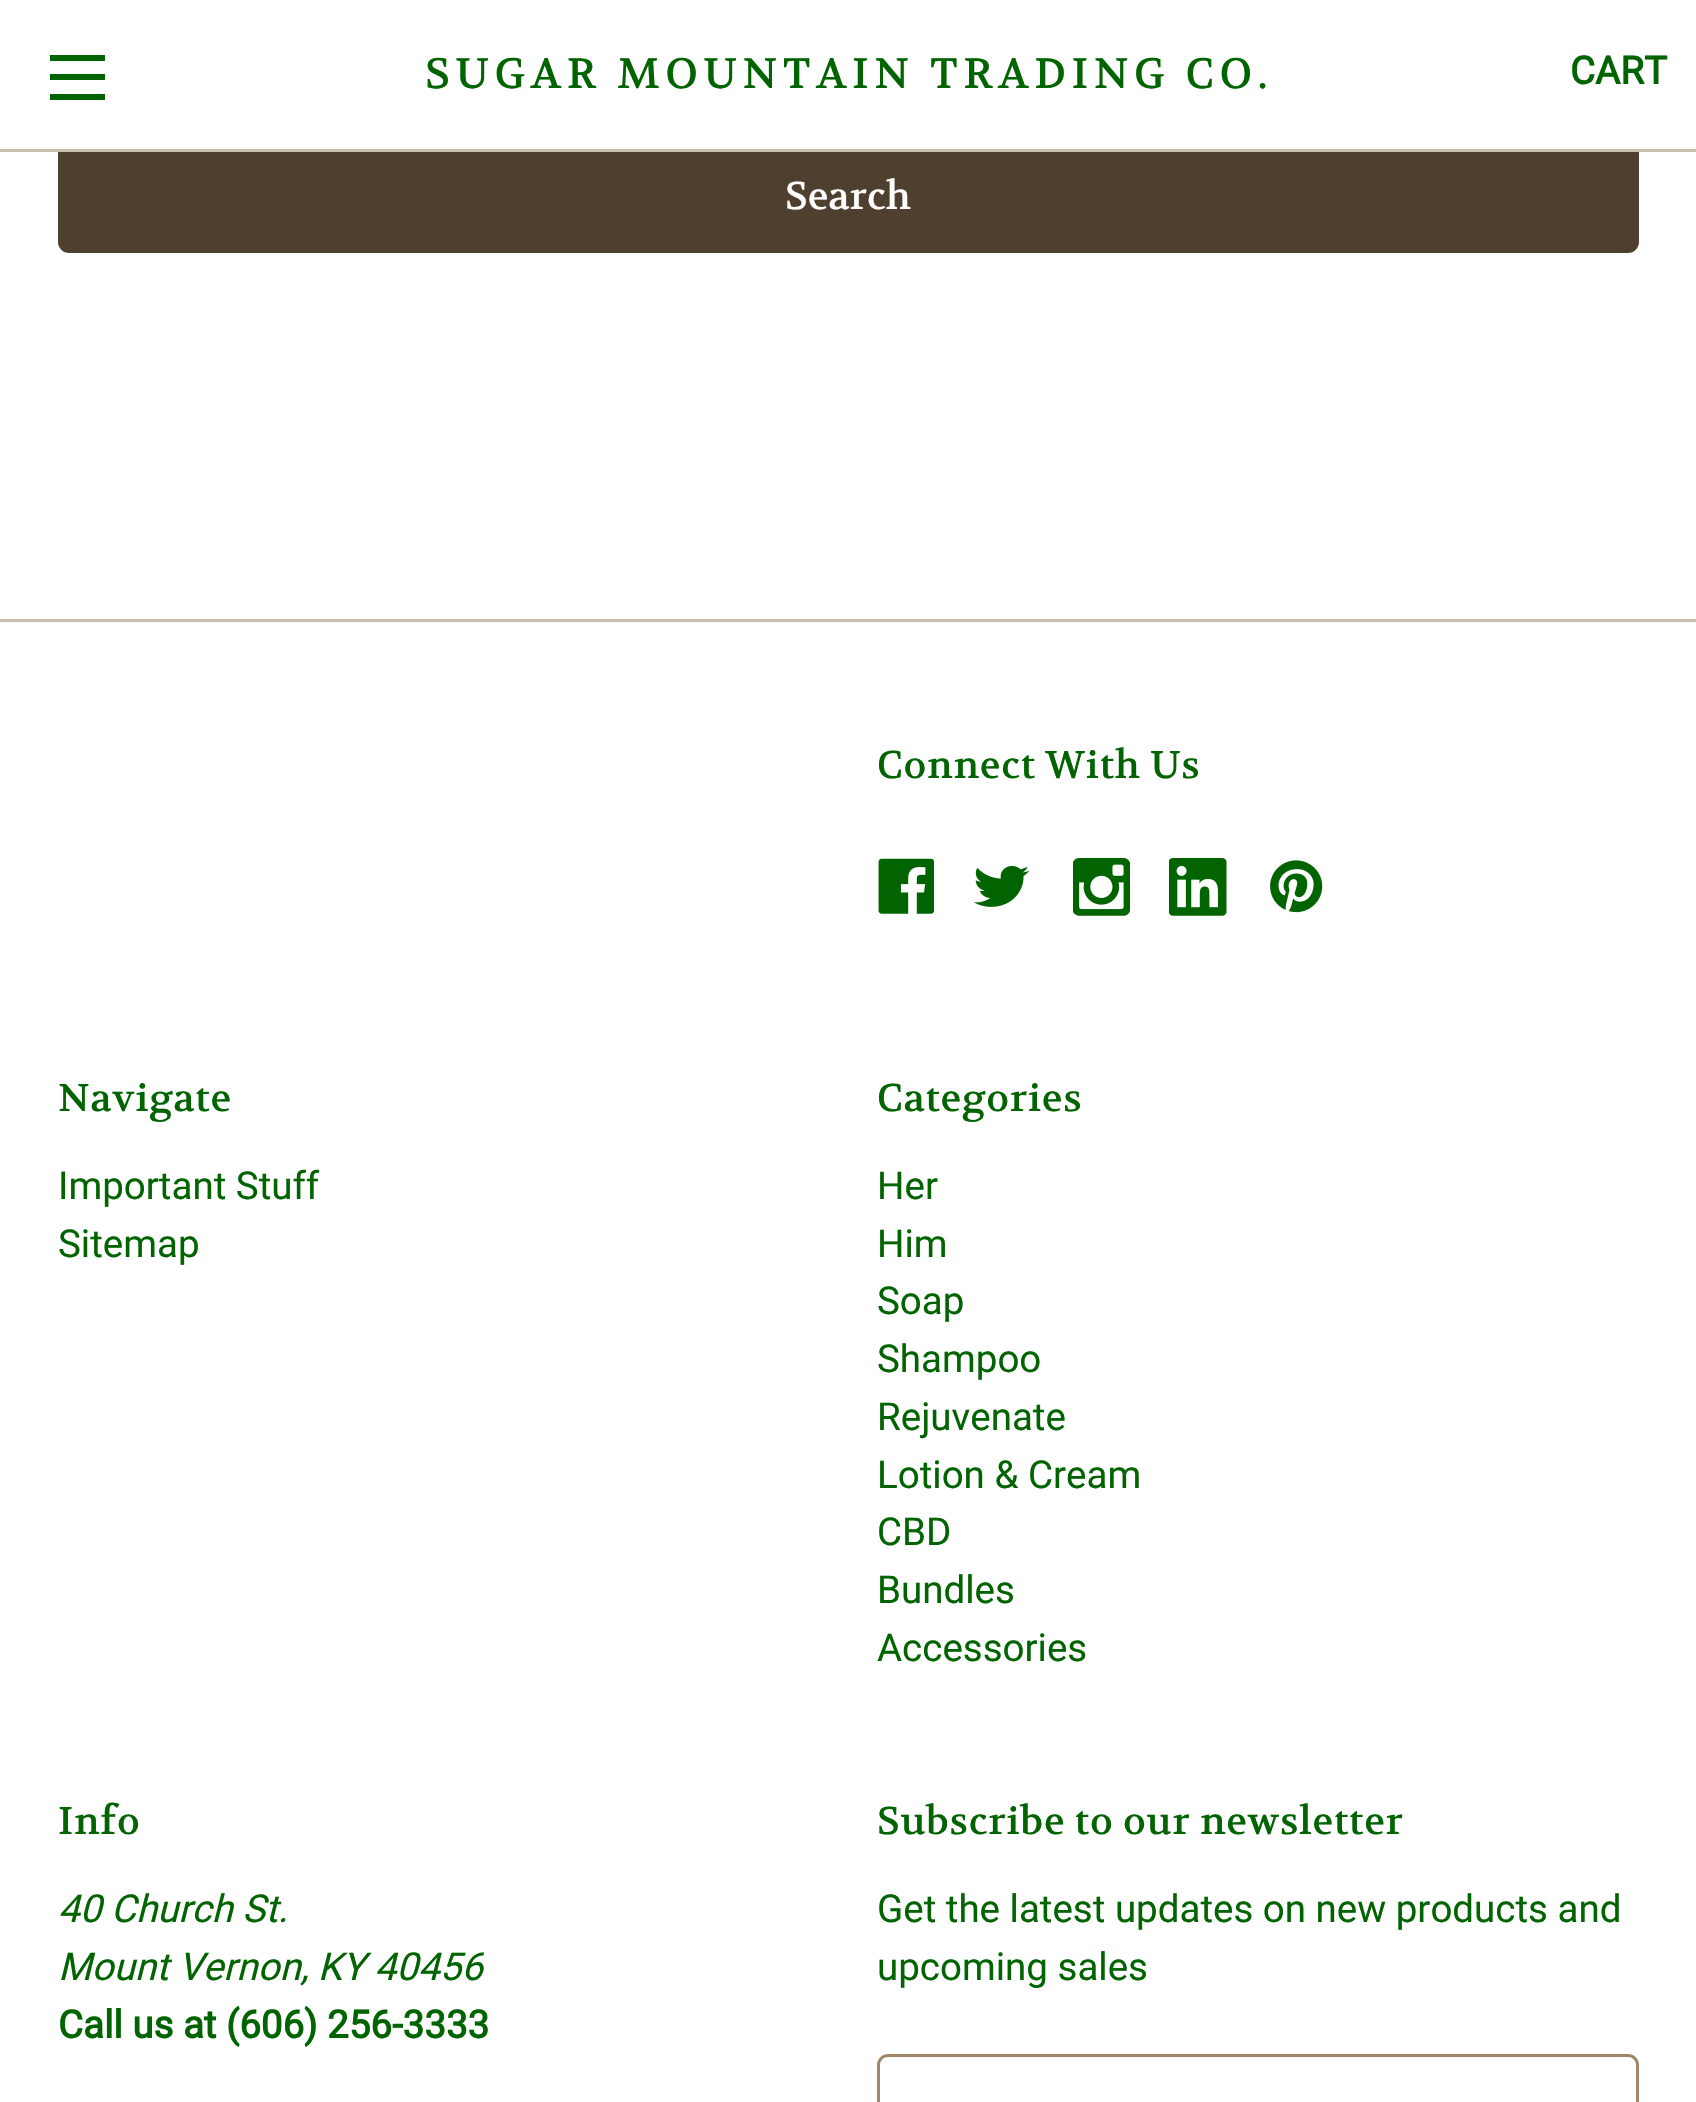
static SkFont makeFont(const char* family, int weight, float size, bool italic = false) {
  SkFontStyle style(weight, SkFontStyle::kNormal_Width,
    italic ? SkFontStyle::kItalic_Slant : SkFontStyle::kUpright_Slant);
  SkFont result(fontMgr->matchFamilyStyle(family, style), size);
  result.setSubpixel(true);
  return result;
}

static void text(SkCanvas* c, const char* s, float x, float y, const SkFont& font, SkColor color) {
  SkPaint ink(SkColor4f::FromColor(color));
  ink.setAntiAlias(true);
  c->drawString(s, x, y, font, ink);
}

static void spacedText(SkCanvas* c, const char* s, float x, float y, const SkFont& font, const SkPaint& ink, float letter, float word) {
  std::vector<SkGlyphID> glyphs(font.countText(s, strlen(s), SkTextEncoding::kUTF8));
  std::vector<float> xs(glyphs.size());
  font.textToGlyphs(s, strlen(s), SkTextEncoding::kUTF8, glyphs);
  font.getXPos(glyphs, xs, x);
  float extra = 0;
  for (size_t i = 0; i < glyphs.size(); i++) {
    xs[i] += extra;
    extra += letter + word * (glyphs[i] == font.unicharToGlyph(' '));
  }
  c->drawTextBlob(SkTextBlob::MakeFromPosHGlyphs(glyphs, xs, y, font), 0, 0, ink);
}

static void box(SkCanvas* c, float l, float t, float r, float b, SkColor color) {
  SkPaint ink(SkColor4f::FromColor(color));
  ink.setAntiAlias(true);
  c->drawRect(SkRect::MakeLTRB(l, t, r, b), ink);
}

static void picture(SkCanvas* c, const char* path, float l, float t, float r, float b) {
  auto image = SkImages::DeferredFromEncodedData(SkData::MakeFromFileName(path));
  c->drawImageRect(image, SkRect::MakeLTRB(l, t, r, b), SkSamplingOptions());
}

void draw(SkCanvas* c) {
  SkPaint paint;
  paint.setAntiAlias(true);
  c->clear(0xffffffff);
  paint.setColor(0xff4f3f2f);
  c->drawRoundRect(SkRect::MakeLTRB(59.5f, 139.5f, 1637.5f, 251.5f), 9.5f, 9.5f, paint);
  paint.setStyle(SkPaint::kStroke_Style);
  paint.setStrokeWidth(3);
  c->drawRoundRect(SkRect::MakeLTRB(59.5f, 139.5f, 1637.5f, 251.5f), 9.5f, 9.5f, paint);
  box(c, 58, 138, 1639, 149, 0xffffffff);
  box(c, 0, 149, 1696, 152, 0xffccbdae);
  box(c, 50, 74, 105, 80, 0xff016401);
  box(c, 50, 55, 105, 61, 0xff016401);
  box(c, 50, 94, 105, 100, 0xff016401);
  SkFont face1 = makeFont("Volkhov", 400, 42.4f);
  paint.setStyle(SkPaint::kFill_Style);
  paint.setColor(0xff016401);
  spacedText(c, "SUGAR MOUNTAIN TRADING CO.", 425, 88, face1, paint, 5.5f, 0);
  SkFont face2 = makeFont("Roboto", 700, 38.5f);
  text(c, "CART", 1570, 84, face2, 0xff016401);
  SkFont face3 = makeFont("Volkhov", 400, 38.5f);
  text(c, "Search", 785, 209, face3, 0xffffffff);
  box(c, 0, 619, 1696, 622, 0xffccbdae);
  spacedText(c, "Connect With Us", 877, 778, face3, paint, 0.7f, 0);
  picture(c, "img_01.png", 878, 858, 934, 914);
  picture(c, "img_02.png", 974, 865, 1029, 907);
  picture(c, "img_03.png", 1073, 858, 1130, 916);
  picture(c, "img_04.png", 1169, 858, 1227, 916);
  picture(c, "img_05.png", 1270, 860, 1323, 913);
  spacedText(c, "Navigate", 58, 1111, face3, paint, 0.7f, 0);
  SkFont face4 = makeFont("Roboto", 400, 38.5f);
  text(c, "Important Stuff", 58, 1199, face4, 0xff016401);
  text(c, "Sitemap", 58, 1257, face4, 0xff016401);
  spacedText(c, "Categories", 877, 1111, face3, paint, 0.7f, 0);
  text(c, "Her", 877, 1199, face4, 0xff016401);
  text(c, "Him", 877, 1257, face4, 0xff016401);
  text(c, "Soap", 877, 1314, face4, 0xff016401);
  text(c, "Shampoo", 877, 1372, face4, 0xff016401);
  text(c, "Rejuvenate", 877, 1430, face4, 0xff016401);
  text(c, "Lotion & Cream", 877, 1488, face4, 0xff016401);
  text(c, "CBD", 877, 1545, face4, 0xff016401);
  text(c, "Bundles", 877, 1603, face4, 0xff016401);
  text(c, "Accessories", 877, 1661, face4, 0xff016401);
  spacedText(c, "Info", 58, 1834, face3, paint, 0.7f, 0);
  SkFont face5 = makeFont("Roboto", 400, 38.5f, true);
  text(c, "40 Church St.", 58, 1922, face5, 0xff016401);
  text(c, "Mount Vernon, KY 40456", 58, 1980, face5, 0xff016401);
  text(c, "Call us at (606) 256-3333", 58, 2038, face2, 0xff016401);
  spacedText(c, "Subscribe to our newsletter", 877, 1834, face3, paint, 0.7f, 0);
  text(c, "Get the latest updates on new products and", 877, 1922, face4, 0xff016401);
  text(c, "upcoming sales", 877, 1980, face4, 0xff016401);
  paint.setStyle(SkPaint::kStroke_Style);
  paint.setColor(0xffa18568);
  c->drawRoundRect(SkRect::MakeLTRB(878.5f, 2055.5f, 1637.5f, 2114.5f), 9.5f, 9.5f, paint);
}
